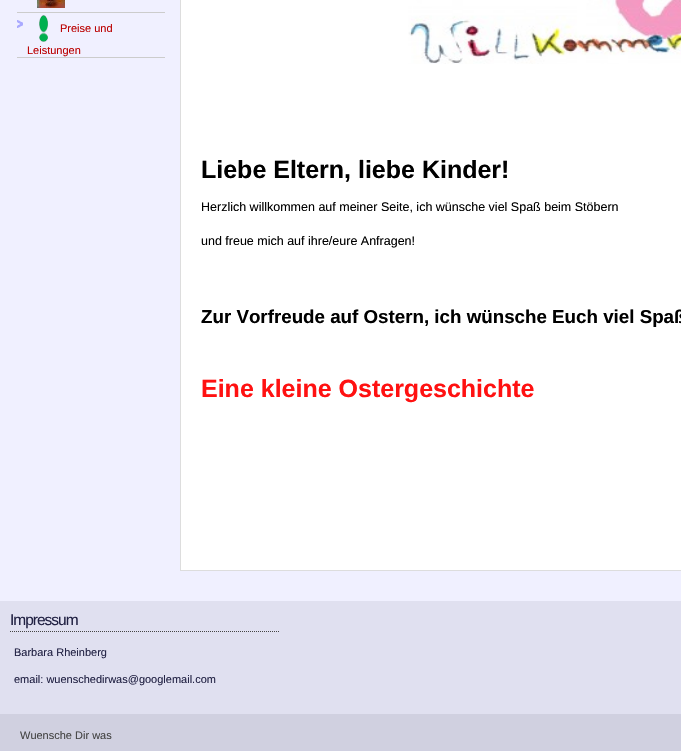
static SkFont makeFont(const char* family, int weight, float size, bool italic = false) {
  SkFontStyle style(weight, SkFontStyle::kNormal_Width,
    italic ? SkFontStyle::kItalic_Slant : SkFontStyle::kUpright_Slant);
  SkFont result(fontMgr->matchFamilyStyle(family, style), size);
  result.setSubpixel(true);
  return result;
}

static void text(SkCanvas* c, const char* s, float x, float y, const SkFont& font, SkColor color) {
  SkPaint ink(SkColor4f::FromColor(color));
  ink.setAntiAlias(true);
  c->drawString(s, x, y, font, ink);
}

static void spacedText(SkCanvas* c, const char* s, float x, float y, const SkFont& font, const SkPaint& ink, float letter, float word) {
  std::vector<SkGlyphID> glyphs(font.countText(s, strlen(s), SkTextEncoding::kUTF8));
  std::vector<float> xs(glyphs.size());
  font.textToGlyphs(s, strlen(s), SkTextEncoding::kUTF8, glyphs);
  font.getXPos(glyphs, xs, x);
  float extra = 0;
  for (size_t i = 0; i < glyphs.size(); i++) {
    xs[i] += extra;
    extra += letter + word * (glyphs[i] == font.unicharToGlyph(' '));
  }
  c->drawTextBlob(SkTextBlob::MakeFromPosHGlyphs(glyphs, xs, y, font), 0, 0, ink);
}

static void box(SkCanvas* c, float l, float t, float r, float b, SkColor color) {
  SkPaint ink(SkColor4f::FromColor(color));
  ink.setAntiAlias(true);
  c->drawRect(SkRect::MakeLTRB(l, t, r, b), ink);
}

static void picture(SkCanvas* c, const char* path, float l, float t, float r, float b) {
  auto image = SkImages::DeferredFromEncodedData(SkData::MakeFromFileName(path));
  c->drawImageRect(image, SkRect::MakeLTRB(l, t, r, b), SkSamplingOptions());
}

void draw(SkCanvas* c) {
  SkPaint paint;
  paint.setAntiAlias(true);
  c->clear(0xfff0f0ff);
  box(c, 17, 12, 165, 13, 0xffcccccc);
  picture(c, "img_01.png", 37, 0, 65, 8);
  picture(c, "img_02.png", 17, 20, 23, 28);
  box(c, 17, 57, 165, 58, 0xffcccccc);
  picture(c, "img_03.png", 39, 15, 48, 42);
  SkFont face1 = makeFont("Liberation Sans", 400, 11);
  text(c, "Preise und", 60, 32, face1, 0xffbb0000);
  text(c, "Leistungen", 27, 54, face1, 0xffbb0000);
  paint.setColor(0xffffffff);
  c->drawRect(SkRect::MakeLTRB(180.5f, -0.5f, 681.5f, 570.5f), paint);
  paint.setStyle(SkPaint::kStroke_Style);
  paint.setStrokeWidth(1);
  paint.setColor(0xffdddddd);
  c->drawRect(SkRect::MakeLTRB(180.5f, -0.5f, 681.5f, 570.5f), paint);
  picture(c, "img_04.png", 408, 0, 681, 64);
  SkFont face2 = makeFont("Liberation Sans", 700, 25);
  text(c, "Liebe Eltern, liebe Kinder!", 201, 178, face2, 0xff000000);
  SkFont face3 = makeFont("Liberation Sans", 400, 12.5f);
  text(c, "Herzlich willkommen auf meiner Seite, ich wünsche viel Spaß beim Stöbern", 201, 211, face3, 0xff000000);
  text(c, "und freue mich auf ihre/eure Anfragen!", 201, 245, face3, 0xff000000);
  SkFont face4 = makeFont("Liberation Sans", 700, 18.75f);
  text(c, "Zur Vorfreude auf Ostern, ich wünsche Euch viel Spaß", 201, 323, face4, 0xff000000);
  text(c, "Eine kleine Ostergeschichte", 201, 397, face2, 0xffff1111);
  box(c, 0, 601, 681, 714, 0xffe0e0f0);
  paint.setColor(0xff444444);
  paint.setPathEffect(SkDashPathEffect::Make({{1, 1}}, 0));
  c->drawPath(SkPathBuilder().moveTo(10, 631.5f).lineTo(280, 631.5f).detach(), paint);
  paint.setPathEffect(nullptr);
  SkFont face5 = makeFont("Liberation Sans", 400, 15.5f);
  paint.setStyle(SkPaint::kFill_Style);
  paint.setColor(0xff222244);
  spacedText(c, "Impressum", 10, 625, face5, paint, -1, 0);
  text(c, "Barbara Rheinberg", 14, 656, face1, 0xff222244);
  text(c, "email: wuenschedirwas@googlemail.com", 14, 683, face1, 0xff222244);
  box(c, 0, 714, 681, 751, 0xffd0d0e0);
  text(c, "Wuensche Dir was", 20, 739, face1, 0xff444444);
}
